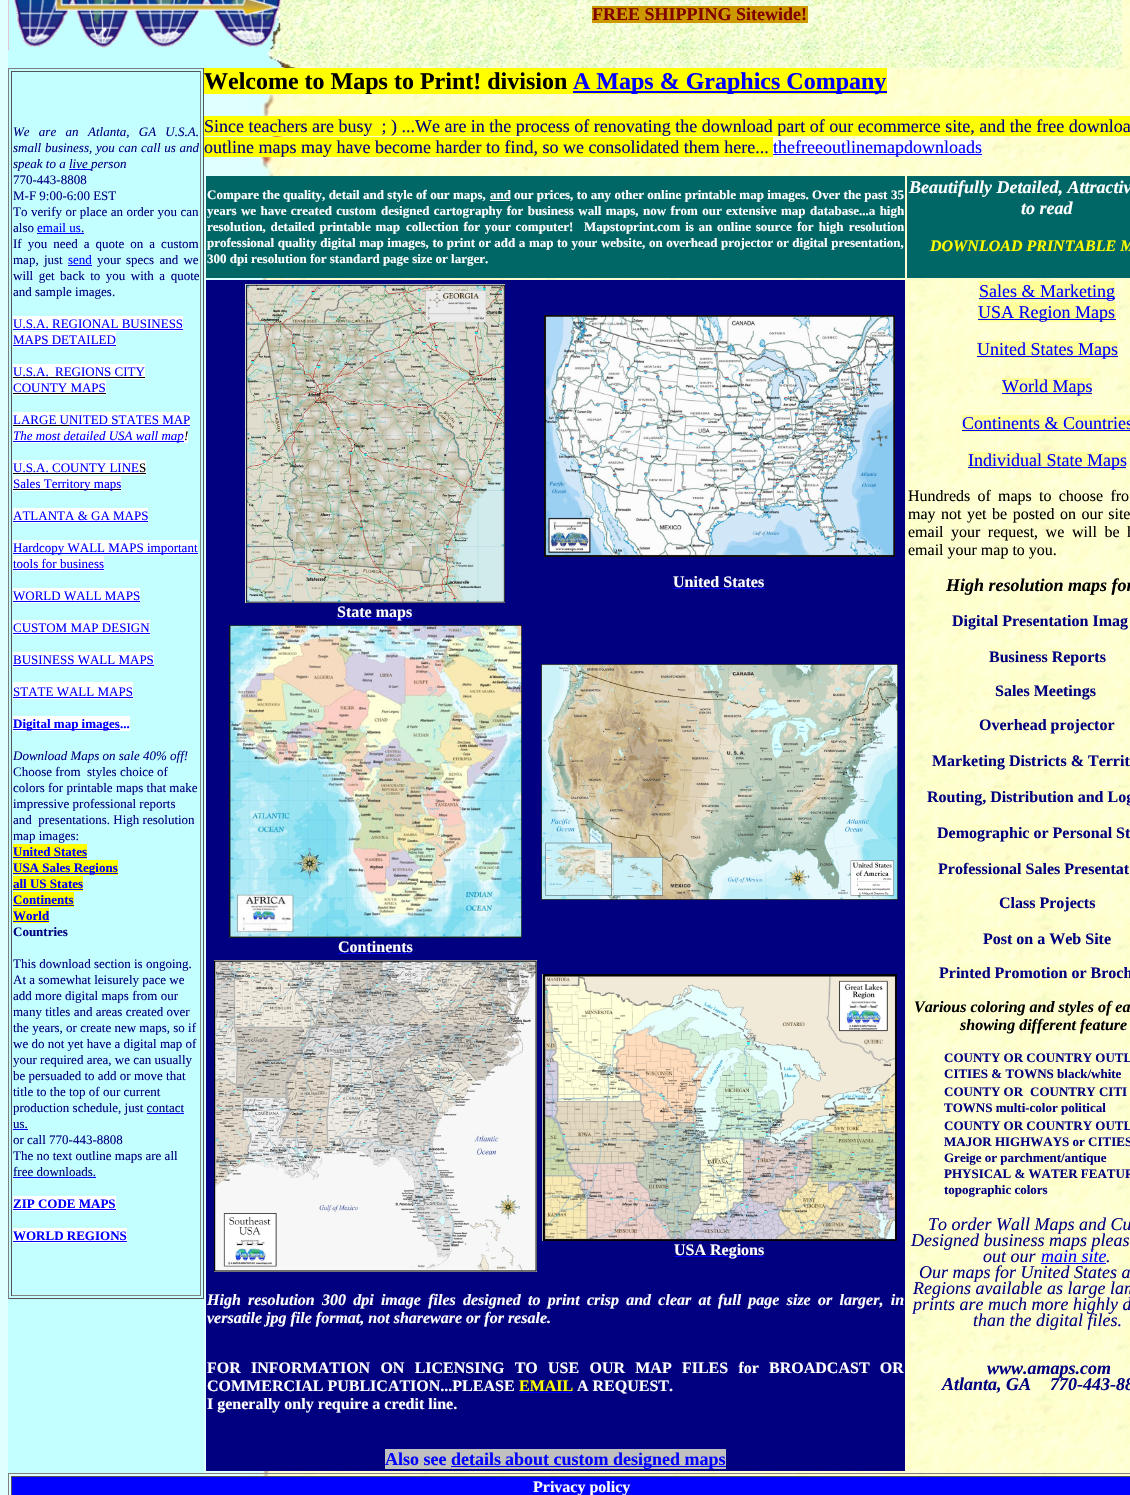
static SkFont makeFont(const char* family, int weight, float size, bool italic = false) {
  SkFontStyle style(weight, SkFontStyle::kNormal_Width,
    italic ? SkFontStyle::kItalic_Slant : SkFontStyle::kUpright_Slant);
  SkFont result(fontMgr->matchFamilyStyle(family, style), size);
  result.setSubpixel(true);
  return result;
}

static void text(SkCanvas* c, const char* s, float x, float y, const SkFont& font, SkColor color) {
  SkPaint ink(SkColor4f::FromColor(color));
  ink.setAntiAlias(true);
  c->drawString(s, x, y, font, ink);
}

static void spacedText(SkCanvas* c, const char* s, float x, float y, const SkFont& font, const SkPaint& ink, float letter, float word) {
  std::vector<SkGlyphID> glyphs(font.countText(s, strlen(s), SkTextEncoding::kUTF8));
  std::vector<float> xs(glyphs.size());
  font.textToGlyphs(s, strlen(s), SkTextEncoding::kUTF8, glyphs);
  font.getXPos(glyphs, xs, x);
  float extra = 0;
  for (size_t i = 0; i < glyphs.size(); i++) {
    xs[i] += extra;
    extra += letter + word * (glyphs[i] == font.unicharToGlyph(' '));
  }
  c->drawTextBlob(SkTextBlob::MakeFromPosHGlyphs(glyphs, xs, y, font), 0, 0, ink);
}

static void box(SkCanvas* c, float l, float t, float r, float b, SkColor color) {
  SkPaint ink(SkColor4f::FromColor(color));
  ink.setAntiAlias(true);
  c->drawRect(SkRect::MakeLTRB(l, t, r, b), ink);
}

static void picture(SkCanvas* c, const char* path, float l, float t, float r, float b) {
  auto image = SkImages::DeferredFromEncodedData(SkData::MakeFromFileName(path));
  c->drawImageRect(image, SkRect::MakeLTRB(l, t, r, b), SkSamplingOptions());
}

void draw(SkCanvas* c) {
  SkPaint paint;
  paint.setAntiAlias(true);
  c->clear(0xffffffff);
  picture(c, "img_01.png", 0, 0, 1130, 1495);
  picture(c, "img_02.png", 8, 0, 1122, 68);
  picture(c, "img_03.png", 8, 0, 287, 50);
  box(c, 592, 6, 808, 23, 0xffcc9900);
  SkFont face1 = makeFont("Liberation Serif", 700, 18);
  text(c, "FREE SHIPPING Sitewide!", 592, 20, face1, 0xff800000);
  box(c, 8, 69, 204, 1473, 0xffc3ffff);
  box(c, 8, 68, 204, 69, 0xff808080);
  box(c, 203, 68, 204, 1299, 0xff555555);
  box(c, 8, 1298, 204, 1299, 0xff555555);
  box(c, 8, 68, 9, 1299, 0xff808080);
  box(c, 11, 71, 201, 72, 0xff555555);
  box(c, 200, 71, 201, 1296, 0xff808080);
  box(c, 11, 1295, 201, 1296, 0xff808080);
  box(c, 11, 71, 12, 1296, 0xff555555);
  SkFont face2 = makeFont("Liberation Serif", 400, 13, true);
  paint.setColor(0xff000080);
  spacedText(c, "We are an", 13, 136, face2, paint, 0, 6);
  spacedText(c, "Atlanta, GA U.S.A.", 88, 136, face2, paint, 0, 6);
  spacedText(c, "small business, you can call us and", 13, 152, face2, paint, 0, 0.5f);
  text(c, "speak to a live", 13, 168, face2, 0xff000080);
  box(c, 69, 169, 91, 170, 0xff0000ff);
  text(c, "person", 91, 168, face2, 0xff000080);
  SkFont face3 = makeFont("Liberation Serif", 400, 13);
  text(c, "770-443-8808", 13, 184, face3, 0xff000080);
  text(c, "M-F 9:00-6:00 EST", 13, 200, face3, 0xff000080);
  spacedText(c, "To verify or place an order you can", 13, 216, face3, paint, 0, 0.25f);
  text(c, "also", 13, 232, face3, 0xff000080);
  text(c, "email us", 37, 232, face3, 0xff0000ff);
  text(c, ".", 81, 232, face3, 0xff000080);
  box(c, 37, 233, 84, 234, 0xff0000ff);
  spacedText(c, "If you need a quote on a custom", 13, 248, face3, paint, 0, 2.75f);
  spacedText(c, "map, just", 13, 264, face3, paint, 0, 2);
  text(c, "send", 68, 264, face3, 0xff0000ff);
  box(c, 68, 265, 92, 266, 0xff0000ff);
  text(c, "your", 97, 264, face3, 0xff000080);
  spacedText(c, "specs and we", 126, 264, face3, paint, 0, 2);
  spacedText(c, "will get back to you with a quote", 13, 280, face3, paint, 0, 2.25f);
  text(c, "and sample images.", 13, 296, face3, 0xff000080);
  box(c, 13, 316, 183, 331, 0xffffffff);
  text(c, "U.S.A. REGIONAL BUSINESS", 13, 328, face3, 0xff0000ff);
  box(c, 13, 329, 183, 330, 0xff0000ff);
  box(c, 13, 332, 116, 347, 0xffffffff);
  text(c, "MAPS DETAILED", 13, 344, face3, 0xff0000ff);
  box(c, 13, 345, 116, 346, 0xff0000ff);
  box(c, 13, 364, 145, 379, 0xffffffff);
  text(c, "U.S.A.", 13, 376, face3, 0xff0000ff);
  box(c, 13, 377, 145, 378, 0xff000000);
  text(c, "REGIONS CITY", 55, 376, face3, 0xff0000ff);
  box(c, 13, 380, 106, 395, 0xffffffff);
  text(c, "COUNTY MAPS", 13, 392, face3, 0xff0000ff);
  box(c, 13, 393, 106, 394, 0xff000000);
  box(c, 13, 412, 190, 427, 0xffffffff);
  text(c, "LARGE UNITED STATES MAP", 13, 424, face3, 0xff0000ff);
  box(c, 13, 425, 69, 426, 0xff000000);
  box(c, 69, 425, 190, 426, 0xff0000ff);
  box(c, 13, 428, 188, 443, 0xffffffff);
  box(c, 13, 441, 184, 442, 0xff0000ff);
  text(c, "The most detailed USA wall map", 13, 440, face2, 0xff0000ff);
  text(c, "!", 184, 440, face2, 0xff000000);
  box(c, 13, 460, 146, 475, 0xffffffff);
  text(c, "U.S.A. COUNTY LINE", 13, 472, face3, 0xff0000ff);
  box(c, 13, 473, 146, 474, 0xff000000);
  text(c, "S", 139, 472, face3, 0xff000000);
  box(c, 13, 476, 121, 491, 0xffffffff);
  box(c, 13, 489, 121, 490, 0xff000000);
  text(c, "Sales Territory maps", 13, 488, face3, 0xff0000ff);
  box(c, 13, 508, 148, 523, 0xffffffff);
  text(c, "ATLANTA & GA MAPS", 13, 520, face3, 0xff0000ff);
  box(c, 13, 521, 148, 522, 0xff0000ff);
  box(c, 13, 540, 198, 555, 0xffffffff);
  box(c, 13, 553, 198, 554, 0xff0000ff);
  text(c, "Hardcopy WALL MAPS important", 13, 552, face3, 0xff0000ff);
  box(c, 13, 556, 104, 571, 0xffffffff);
  text(c, "tools for business", 13, 568, face3, 0xff0000ff);
  box(c, 13, 569, 104, 570, 0xff0000ff);
  box(c, 13, 588, 140, 603, 0xffffffff);
  text(c, "WORLD WALL MAPS", 13, 600, face3, 0xff0000ff);
  box(c, 13, 601, 140, 602, 0xff0000ff);
  box(c, 13, 620, 150, 635, 0xffffffff);
  text(c, "CUSTOM MAP DESIGN", 13, 632, face3, 0xff0000ff);
  box(c, 13, 633, 150, 634, 0xff0000ff);
  box(c, 13, 652, 154, 667, 0xffffffff);
  text(c, "BUSINESS WALL MAPS", 13, 664, face3, 0xff0000ff);
  box(c, 13, 665, 154, 666, 0xff0000ff);
  box(c, 13, 682, 133, 699, 0xffffffff);
  text(c, "STATE WALL MAPS", 13, 696, face3, 0xff0000ff);
  box(c, 13, 697, 133, 698, 0xff0000ff);
  box(c, 13, 716, 130, 731, 0xffffffff);
  box(c, 13, 729, 120, 730, 0xff0000ff);
  SkFont face4 = makeFont("Liberation Serif", 700, 13);
  text(c, "Digital map images...", 13, 728, face4, 0xff0000ff);
  text(c, "Download Maps on sale 40% off!", 13, 760, face2, 0xff000080);
  text(c, "Choose from  styles choice of", 13, 776, face3, 0xff000080);
  text(c, "colors for printable maps that make", 13, 792, face3, 0xff000080);
  text(c, "impressive professional reports", 13, 808, face3, 0xff000080);
  text(c, "and  presentations. High resolution", 13, 824, face3, 0xff000080);
  text(c, "map images:", 13, 840, face3, 0xff000080);
  box(c, 13, 844, 87, 859, 0xffffff00);
  text(c, "United States", 13, 856, face4, 0xff0000ff);
  box(c, 13, 857, 87, 858, 0xff0000ff);
  box(c, 13, 860, 118, 875, 0xffffff00);
  box(c, 13, 873, 118, 874, 0xff0000ff);
  text(c, "USA Sales Regions", 13, 872, face4, 0xff0000ff);
  box(c, 13, 876, 83, 891, 0xffffff00);
  text(c, "all US States", 13, 888, face4, 0xff0000ff);
  box(c, 13, 889, 83, 890, 0xff0000ff);
  box(c, 13, 892, 74, 907, 0xffffff00);
  text(c, "Continents", 13, 904, face4, 0xff0000ff);
  box(c, 13, 905, 74, 906, 0xff0000ff);
  box(c, 13, 908, 49, 923, 0xffffff00);
  text(c, "World", 13, 920, face4, 0xff0000ff);
  box(c, 13, 921, 49, 922, 0xff0000ff);
  text(c, "Countries", 13, 936, face4, 0xff000080);
  text(c, "This download section is ongoing.", 13, 968, face3, 0xff000080);
  text(c, "At a somewhat leisurely pace we", 13, 984, face3, 0xff000080);
  text(c, "add more digital maps from our", 13, 1000, face3, 0xff000080);
  text(c, "many titles and areas created over", 13, 1016, face3, 0xff000080);
  text(c, "the years, or create new maps, so if", 13, 1032, face3, 0xff000080);
  text(c, "we do not yet have a digital map of", 13, 1048, face3, 0xff000080);
  text(c, "your required area, we can usually", 13, 1064, face3, 0xff000080);
  text(c, "be persuaded to add or move that", 13, 1080, face3, 0xff000080);
  text(c, "title to the top of our current", 13, 1096, face3, 0xff000080);
  text(c, "production schedule, just contact", 13, 1112, face3, 0xff000080);
  text(c, "us.", 13, 1128, face3, 0xff000080);
  box(c, 13, 1129, 28, 1130, 0xff0000ff);
  text(c, "or call 770-443-8808", 13, 1144, face3, 0xff000080);
  box(c, 147, 1113, 184, 1114, 0xff0000ff);
  text(c, "The no text outline maps are all", 13, 1160, face3, 0xff000080);
  text(c, "free downloads.", 13, 1176, face3, 0xff000080);
  box(c, 13, 1177, 96, 1178, 0xff0000ff);
  box(c, 13, 1196, 116, 1211, 0xffffffff);
  text(c, "ZIP CODE MAPS", 13, 1208, face4, 0xff0000ff);
  box(c, 13, 1209, 116, 1210, 0xff0000ff);
  box(c, 13, 1228, 127, 1243, 0xffffffff);
  text(c, "WORLD REGIONS", 13, 1240, face4, 0xff0000ff);
  box(c, 13, 1241, 127, 1242, 0xff0000ff);
  box(c, 204, 68, 887, 94, 0xffffff00);
  SkFont face5 = makeFont("Liberation Serif", 700, 24);
  text(c, "Welcome to Maps to Print! division", 204, 89, face5, 0xff000000);
  box(c, 573, 91, 887, 93, 0xff0000ff);
  text(c, "A Maps & Graphics Company", 573, 89, face5, 0xff0000ff);
  box(c, 204, 116, 1130, 136, 0xffffff00);
  SkFont face6 = makeFont("Liberation Serif", 400, 18);
  text(c, "Since teachers are busy  ; ) ...We are in the process of renovating the download part of our ecommerce site, and the free downloa", 204, 132, face6, 0xff000080);
  box(c, 204, 137, 773, 157, 0xffffff00);
  text(c, "outline maps may have become harder to find, so we consolidated them here...", 204, 153, face6, 0xff000080);
  box(c, 773, 139, 982, 156, 0xffffffff);
  box(c, 773, 154, 982, 155, 0xff0000ff);
  text(c, "thefreeoutlinemapdownloads", 773, 153, face6, 0xff0000ff);
  box(c, 206, 176, 905, 278, 0xff006666);
  paint.setColor(0xffffffff);
  spacedText(c, "Compare the quality, detail and style of our maps,", 207, 199, face4, paint, 0, 0.1f);
  text(c, "and", 490, 199, face4, 0xffffffff);
  box(c, 490, 200, 510, 201, 0xffffffff);
  spacedText(c, "our prices, to any other online printable map images. Over the past", 514, 199, face4, paint, 0, 0.1f);
  text(c, "35", 891, 199, face4, 0xffffffff);
  spacedText(c, "years we have created custom", 207, 215, face4, paint, 0, 1.1f);
  spacedText(c, "designed cartography for business wall maps, now from our extensive", 381, 215, face4, paint, 0, 1.1f);
  spacedText(c, "map database...a high", 781, 215, face4, paint, 0, 1.1f);
  spacedText(c, "resolution, detailed printable map", 207, 231, face4, paint, 0, 1.5f);
  spacedText(c, "collection for your computer!", 406, 231, face4, paint, 0, 1.5f);
  spacedText(c, "Mapstoprint.com is an online source", 584, 231, face4, paint, 0, 1.5f);
  spacedText(c, "for high resolution", 797, 231, face4, paint, 0, 2);
  spacedText(c, "professional quality digital map images, to print or add a map to your website, on overhead projector or digital presentation,", 207, 247, face4, paint, 0, 0.3f);
  text(c, "300 dpi resolution for standard page size or larger.", 207, 263, face4, 0xffffffff);
  box(c, 907, 176, 1130, 278, 0xff006666);
  SkFont face7 = makeFont("Liberation Serif", 700, 18, true);
  text(c, "Beautifully Detailed, Attractiv", 909, 193, face7, 0xffffffff);
  text(c, "to read", 1021, 214, face7, 0xffffffff);
  SkFont face8 = makeFont("Liberation Serif", 700, 16, true);
  text(c, "DOWNLOAD PRINTABLE M", 930, 251, face8, 0xffffff00);
  box(c, 206, 280, 905, 1471, 0xff000080);
  picture(c, "img_04.png", 544, 315, 895, 557);
  SkFont face9 = makeFont("Liberation Serif", 700, 16);
  text(c, "United States", 673, 587, face9, 0xffffffff);
  box(c, 673, 588, 765, 589, 0xff0000ff);
  picture(c, "img_05.png", 245, 284, 505, 603);
  box(c, 337, 618, 413, 619, 0xff0000ff);
  text(c, "State maps", 337, 617, face9, 0xffffffff);
  picture(c, "img_06.png", 541, 664, 898, 900);
  picture(c, "img_07.png", 229, 625, 522, 938);
  text(c, "Continents", 338, 952, face9, 0xffffffff);
  box(c, 338, 953, 412, 954, 0xff0000ff);
  picture(c, "img_08.png", 214, 960, 537, 1272);
  picture(c, "img_09.png", 542, 974, 897, 1241);
  box(c, 674, 1256, 764, 1257, 0xff0000ff);
  text(c, "USA Regions", 674, 1255, face9, 0xffffffff);
  spacedText(c, "High resolution 300 dpi image files designed to print crisp and clear at", 207, 1305, face8, paint, 0, 3.25f);
  spacedText(c, "full page size or larger, in", 718, 1305, face8, paint, 0, 3.25f);
  text(c, "versatile jpg file format, not shareware or for resale.", 207, 1323, face8, 0xffffffff);
  spacedText(c, "FOR INFORMATION ON LICENSING TO USE OUR MAP FILES for BROADCAST OR", 207, 1373, face9, paint, 0, 6.25f);
  text(c, "COMMERCIAL PUBLICATION...PLEASE", 207, 1391, face9, 0xffffffff);
  text(c, "EMAIL", 519, 1391, face9, 0xffffff00);
  box(c, 519, 1392, 573, 1393, 0xff0000ff);
  text(c, "A REQUEST.", 577, 1391, face9, 0xffffffff);
  text(c, "I generally only require a credit line.", 207, 1409, face9, 0xffffffff);
  box(c, 385, 1449, 726, 1469, 0xffc0c0c0);
  text(c, "Also see details", 385, 1465, face1, 0xff0000ff);
  box(c, 451, 1466, 726, 1467, 0xff0000ff);
  text(c, "about custom designed maps", 505, 1465, face1, 0xff0000ff);
  box(c, 979, 281, 1115, 301, 0xffffff99);
  box(c, 979, 298, 1115, 299, 0xff0000ff);
  text(c, "Sales & Marketing", 979, 297, face6, 0xff0000ff);
  box(c, 978, 302, 1116, 322, 0xffffff99);
  box(c, 978, 319, 1116, 320, 0xff0000ff);
  text(c, "USA Region Maps", 978, 318, face6, 0xff0000ff);
  box(c, 977, 341, 1118, 358, 0xffffff99);
  box(c, 977, 356, 1118, 357, 0xff0000ff);
  text(c, "United States Maps", 977, 355, face6, 0xff0000ff);
  box(c, 1002, 378, 1092, 395, 0xffffff99);
  box(c, 1002, 393, 1092, 394, 0xff0000ff);
  text(c, "World Maps", 1002, 392, face6, 0xff0000ff);
  box(c, 962, 415, 1130, 432, 0xffffff99);
  text(c, "Continents & Countries", 962, 429, face6, 0xff0000ff);
  box(c, 962, 430, 1130, 431, 0xff0000ff);
  box(c, 968, 452, 1126, 469, 0xffffff99);
  box(c, 968, 467, 1126, 468, 0xff0000ff);
  text(c, "Individual State Maps", 968, 466, face6, 0xff0000ff);
  SkFont face10 = makeFont("Liberation Serif", 400, 16);
  paint.setColor(0xff000000);
  spacedText(c, "Hundreds of maps to choose fro", 908, 501, face10, paint, 0, 3.25f);
  spacedText(c, "may not yet be posted on our site", 908, 519, face10, paint, 0, 1.5f);
  spacedText(c, "email your request, we", 908, 537, face10, paint, 0, 3.5f);
  spacedText(c, "will be h", 1072, 537, face10, paint, 0, 3.5f);
  text(c, "email your map to you.", 908, 555, face10, 0xff000000);
  text(c, "High resolution maps for", 946, 591, face7, 0xff000000);
  box(c, 952, 612, 1130, 629, 0xffffffcc);
  text(c, "Digital Presentation Imag", 952, 626, face9, 0xff000080);
  box(c, 989, 648, 1105, 665, 0xffffffcc);
  text(c, "Business Reports", 989, 662, face9, 0xff000080);
  box(c, 995, 682, 1099, 699, 0xffffffcc);
  text(c, "Sales Meetings", 995, 696, face9, 0xff000080);
  box(c, 979, 716, 1115, 733, 0xffffffcc);
  text(c, "Overhead projector", 979, 730, face9, 0xff000080);
  box(c, 932, 752, 1130, 769, 0xffffffcc);
  text(c, "Marketing Districts & Territ", 932, 766, face9, 0xff000080);
  box(c, 927, 788, 1130, 805, 0xffffffcc);
  text(c, "Routing, Distribution and Log", 927, 802, face9, 0xff000080);
  box(c, 937, 824, 1130, 841, 0xffffffcc);
  text(c, "Demographic or Personal St", 937, 838, face9, 0xff000080);
  box(c, 938, 860, 1130, 877, 0xffffffcc);
  text(c, "Professional Sales Presentat", 938, 874, face9, 0xff000080);
  box(c, 999, 894, 1095, 911, 0xffffffcc);
  text(c, "Class Projects", 999, 908, face9, 0xff000080);
  box(c, 983, 930, 1111, 947, 0xffffffcc);
  text(c, "Post on a Web Site", 983, 944, face9, 0xff000080);
  box(c, 939, 964, 1130, 981, 0xffffffcc);
  text(c, "Printed Promotion or Broch", 939, 978, face9, 0xff000080);
  text(c, "Various coloring and styles of ea", 914, 1012, face8, 0xff000000);
  text(c, "showing different feature", 960, 1030, face8, 0xff000000);
  text(c, "COUNTY OR COUNTRY OUTL", 944, 1062, face4, 0xff000080);
  text(c, "CITIES & TOWNS black/white", 944, 1078, face4, 0xff000080);
  text(c, "COUNTY OR", 944, 1096, face4, 0xff000080);
  text(c, "COUNTRY CITI", 1030, 1096, face4, 0xff000080);
  text(c, "TOWNS multi-color political", 944, 1112, face4, 0xff000080);
  text(c, "COUNTY OR COUNTRY OUTL", 944, 1130, face4, 0xff000080);
  text(c, "MAJOR HIGHWAYS or CITIES", 944, 1146, face4, 0xff000080);
  text(c, "Greige or parchment/antique", 944, 1162, face4, 0xff000080);
  text(c, "PHYSICAL & WATER FEATUR", 944, 1178, face4, 0xff000080);
  text(c, "topographic colors", 944, 1194, face4, 0xff000080);
  SkFont face11 = makeFont("Liberation Serif", 400, 18, true);
  text(c, "To order Wall Maps and Cu", 928, 1230, face11, 0xff000080);
  text(c, "Designed business maps pleas", 911, 1246, face11, 0xff000080);
  text(c, "out our", 983, 1262, face11, 0xff000080);
  text(c, "main site", 1041, 1262, face11, 0xff0000ff);
  text(c, ".", 1106, 1262, face11, 0xff000080);
  box(c, 1041, 1263, 1106, 1264, 0xff0000ff);
  text(c, "Our maps for United States a", 919, 1278, face11, 0xff000080);
  text(c, "Regions available as large lam", 913, 1294, face11, 0xff000080);
  text(c, "prints are much more highly d", 913, 1310, face11, 0xff000080);
  text(c, "than the digital files.", 973, 1326, face11, 0xff000080);
  text(c, "www.amaps.com", 987, 1374, face7, 0xff000080);
  text(c, "Atlanta, GA", 942, 1390, face7, 0xff000080);
  text(c, "770-443-88", 1050, 1390, face7, 0xff000080);
  box(c, 8, 1473, 1130, 1474, 0xff808080);
  box(c, 8, 1473, 9, 1495, 0xff808080);
  box(c, 12, 1477, 1130, 1495, 0xff0000ff);
  box(c, 11, 1476, 1130, 1477, 0xff555555);
  box(c, 11, 1476, 12, 1495, 0xff555555);
  text(c, "Privacy policy", 533, 1492, face9, 0xffffffff);
}
